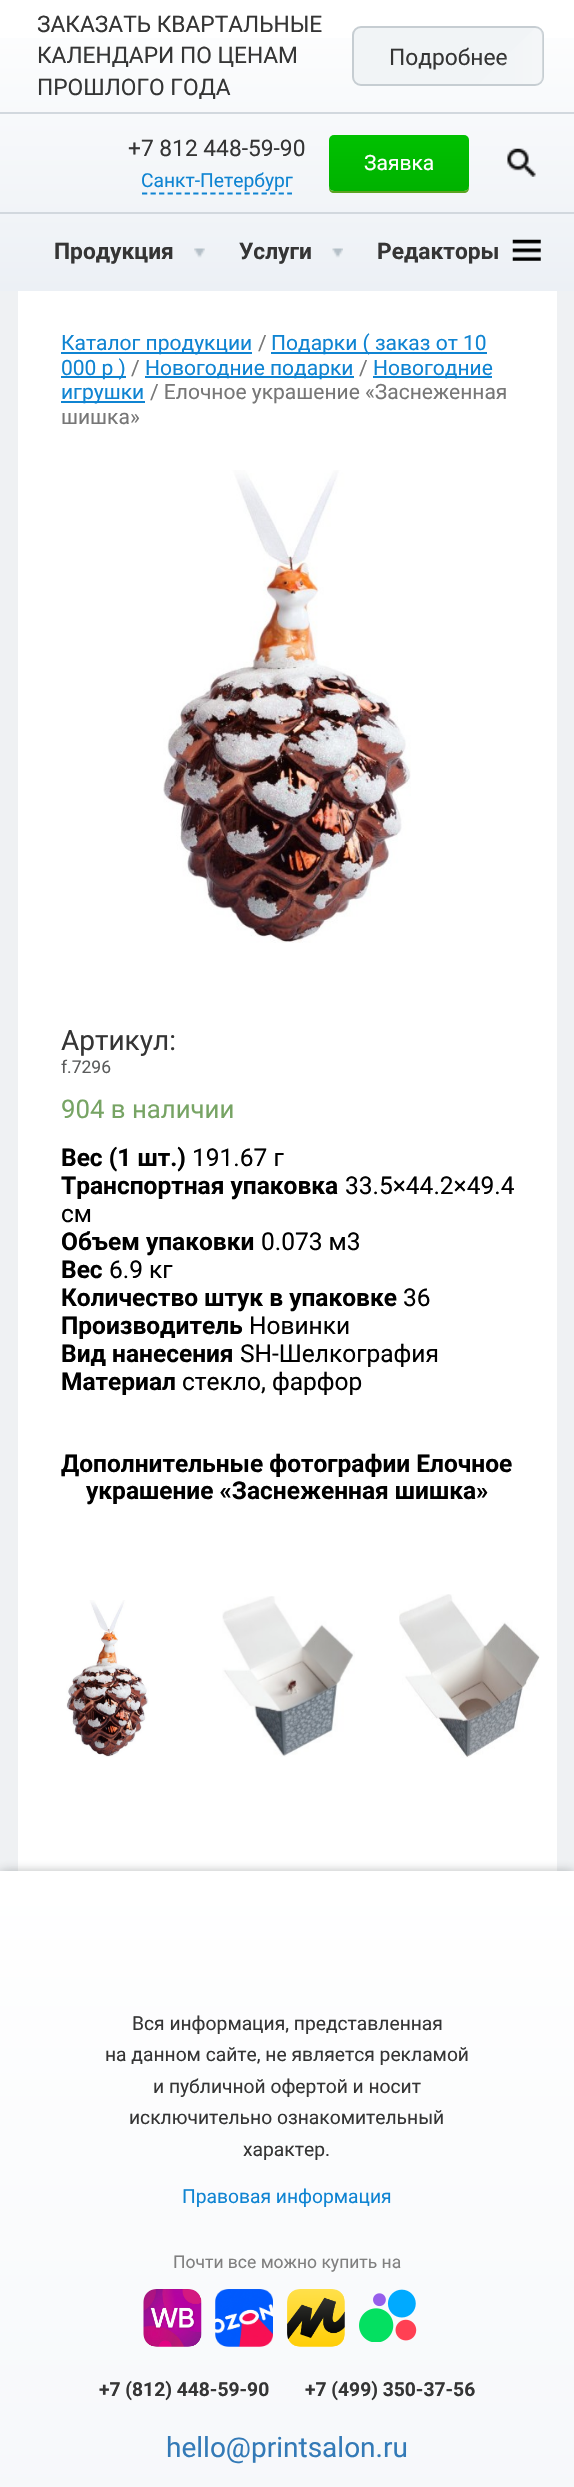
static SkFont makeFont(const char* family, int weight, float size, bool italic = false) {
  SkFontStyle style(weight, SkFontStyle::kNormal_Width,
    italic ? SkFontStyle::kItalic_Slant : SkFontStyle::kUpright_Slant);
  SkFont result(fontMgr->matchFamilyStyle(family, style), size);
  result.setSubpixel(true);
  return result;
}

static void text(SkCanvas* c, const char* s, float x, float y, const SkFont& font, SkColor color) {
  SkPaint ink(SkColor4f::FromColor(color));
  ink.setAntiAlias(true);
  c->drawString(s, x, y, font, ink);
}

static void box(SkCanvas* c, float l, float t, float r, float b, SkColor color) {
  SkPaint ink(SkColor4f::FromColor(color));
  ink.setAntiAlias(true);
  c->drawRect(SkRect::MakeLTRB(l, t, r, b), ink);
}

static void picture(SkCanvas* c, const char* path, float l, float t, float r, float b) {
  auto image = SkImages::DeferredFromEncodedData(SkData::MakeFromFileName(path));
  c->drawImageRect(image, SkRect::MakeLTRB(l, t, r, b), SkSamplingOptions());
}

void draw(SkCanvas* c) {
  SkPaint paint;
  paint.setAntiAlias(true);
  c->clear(0xffffffff);
  {
    const SkColor colors[] = {0xffffffff, 0xffecf0f5};
    const float stops[] = {0, 1};
    const SkPoint ends[] = {{287, 0}, {287, 291}};
    paint.setShader(SkGradientShader::MakeLinear(ends, colors, stops, 2, SkTileMode::kClamp));
    paint.setAlpha(255);
  }
  c->drawRect(SkRect::MakeLTRB(0, 38, 574, 291), paint);
  box(c, 0, 112, 574, 114, 0xffd2d8de);
  SkFont face1 = makeFont("Roboto", 400, 22.75f);
  text(c, "ЗАКАЗАТЬ КВАРТАЛЬНЫЕ", 37, 32, face1, 0xff353535);
  text(c, "КАЛЕНДАРИ ПО ЦЕНАМ", 37, 63, face1, 0xff353535);
  text(c, "ПРОШЛОГО ГОДА", 37, 95, face1, 0xff353535);
  paint.setShader(nullptr);
  paint.setColor(0xfff1f4f6);
  c->drawRoundRect(SkRect::MakeLTRB(353, 27, 543, 85), 8, 8, paint);
  paint.setStyle(SkPaint::kStroke_Style);
  paint.setStrokeWidth(2);
  paint.setColor(0xffc6cdd2);
  c->drawRoundRect(SkRect::MakeLTRB(353, 27, 543, 85), 8, 8, paint);
  text(c, "Подробнее", 389, 65, face1, 0xff353535);
  paint.setStyle(SkPaint::kFill_Style);
  {
    const SkColor colors[] = {0x1affffff, 0x66ffffff};
    const float stops[] = {0, 1};
    const SkPoint ends[] = {{507, 56}, {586, 56}};
    paint.setShader(SkGradientShader::MakeLinear(ends, colors, stops, 2, SkTileMode::kClamp));
    paint.setAlpha(255);
  }
  c->drawPath(SkPathBuilder().moveTo(535, 28).lineTo(479, 84).lineTo(536, 84).cubicTo(540, 84, 543, 81, 543, 77).lineTo(543, 35).cubicTo(543, 31, 540, 28, 536, 28).close().detach(), paint);
  box(c, 0, 212, 574, 214, 0xffd2d8de);
  text(c, "+7 812 448-59-90", 128, 156, face1, 0xff353535);
  SkFont face2 = makeFont("Roboto", 400, 19.25f);
  text(c, "Санкт-Петербург", 141, 187, face2, 0xff0f84d2);
  paint.setStyle(SkPaint::kStroke_Style);
  paint.setStrokeWidth(1.8f);
  paint.setShader(nullptr);
  paint.setColor(0xff0f84d2);
  paint.setPathEffect(SkDashPathEffect::Make({{5.25f, 3.29f}}, 0));
  c->drawPath(SkPathBuilder().moveTo(142, 193.5f).lineTo(292, 193.5f).detach(), paint);
  paint.setPathEffect(nullptr);
  paint.setStyle(SkPaint::kFill_Style);
  paint.setColor(0xff5ba320);
  c->drawPath(SkPathBuilder().moveTo(329, 186).lineTo(329, 188).cubicTo(329, 191, 331, 193, 334, 193).lineTo(464, 193).cubicTo(467, 193, 469, 191, 469, 188).lineTo(469, 186).cubicTo(469, 188, 467, 191, 464, 191).lineTo(334, 191).cubicTo(331, 191, 329, 188, 329, 186).close().detach(), paint);
  {
    const SkColor colors[] = {0xff00c100, 0xff00b200};
    const float stops[] = {0, 1};
    const SkPoint ends[] = {{399, 135}, {399, 191}};
    paint.setShader(SkGradientShader::MakeLinear(ends, colors, stops, 2, SkTileMode::kClamp));
    paint.setAlpha(255);
  }
  c->drawRoundRect(SkRect::MakeLTRB(329, 135, 469, 191), 5, 5, paint);
  SkFont face3 = makeFont("Roboto", 400, 21);
  text(c, "Заявка", 364, 170, face3, 0xffffffff);
  picture(c, "img_01.png", 507, 148, 536, 177);
  SkFont face4 = makeFont("Roboto", 700, 22.75f);
  text(c, "Продукция", 54, 259, face4, 0xff353535);
  picture(c, "img_02.png", 194, 248, 205, 258);
  text(c, "Услуги", 239, 259, face4, 0xff353535);
  picture(c, "img_03.png", 332, 248, 343, 258);
  text(c, "Редакторы", 377, 259, face4, 0xff353535);
  picture(c, "img_04.png", 512, 239, 541, 261);
  box(c, 0, 291, 574, 1871, 0xffeff1f3);
  box(c, 18, 291, 557, 1871, 0xffffffff);
  box(c, 61, 352, 252, 354, 0xff0f84d2);
  text(c, "Каталог продукции", 61, 350, face3, 0xff0f84d2);
  text(c, "/", 258, 350, face3, 0xff777777);
  box(c, 271, 352, 487, 354, 0xff0f84d2);
  text(c, "Подарки ( заказ от 10", 271, 350, face3, 0xff0f84d2);
  box(c, 61, 376, 126, 378, 0xff0f84d2);
  text(c, "000 р )", 61, 375, face3, 0xff0f84d2);
  text(c, "/", 131, 375, face3, 0xff777777);
  box(c, 145, 376, 354, 378, 0xff0f84d2);
  text(c, "Новогодние подарки", 145, 375, face3, 0xff0f84d2);
  text(c, "/", 359, 375, face3, 0xff777777);
  box(c, 373, 376, 492, 378, 0xff0f84d2);
  text(c, "Новогодние", 373, 375, face3, 0xff0f84d2);
  box(c, 61, 401, 145, 403, 0xff0f84d2);
  text(c, "игрушки", 61, 399, face3, 0xff0f84d2);
  text(c, "/ Елочное украшение «Заснеженная", 150, 399, face3, 0xff777777);
  text(c, "шишка»", 61, 424, face3, 0xff777777);
  picture(c, "img_05.png", 163, 470, 411, 943);
  SkFont face5 = makeFont("Roboto", 400, 28);
  text(c, "Артикул:", 61, 1050, face5, 0xff353535);
  SkFont face6 = makeFont("Roboto", 400, 17.5f);
  text(c, "f.7296", 61, 1073, face6, 0xff5b5c5c);
  SkFont face7 = makeFont("Roboto", 400, 25.75f);
  text(c, "904 в наличии", 61, 1118, face7, 0xff77a464);
  SkFont face8 = makeFont("Roboto", 700, 24.5f);
  text(c, "Вес (1 шт.)", 61, 1166, face8, 0xff000000);
  SkFont face9 = makeFont("Roboto", 400, 24.5f);
  text(c, "191.67 г", 192, 1166, face9, 0xff000000);
  text(c, "Транспортная упаковка", 61, 1194, face8, 0xff000000);
  text(c, "33.5×44.2×49.4", 345, 1194, face9, 0xff000000);
  text(c, "см", 61, 1222, face9, 0xff000000);
  text(c, "Объем упаковки", 61, 1250, face8, 0xff000000);
  text(c, "0.073 м3", 261, 1250, face9, 0xff000000);
  text(c, "Вес", 61, 1278, face8, 0xff000000);
  text(c, "6.9 кг", 109, 1278, face9, 0xff000000);
  text(c, "Количество штук в упаковке", 61, 1306, face8, 0xff000000);
  text(c, "36", 403, 1306, face9, 0xff000000);
  text(c, "Производитель", 61, 1334, face8, 0xff000000);
  text(c, "Новинки", 249, 1334, face9, 0xff000000);
  text(c, "Вид нанесения", 61, 1362, face8, 0xff000000);
  text(c, "SH-Шелкография", 240, 1362, face9, 0xff000000);
  text(c, "Материал", 61, 1390, face8, 0xff000000);
  text(c, "стекло, фарфор", 182, 1390, face9, 0xff000000);
  text(c, "Дополнительные фотографии Елочное", 61, 1472, face8, 0xff000000);
  text(c, "украшение «Заснеженная шишка»", 86, 1499, face8, 0xff000000);
  picture(c, "img_06.png", 66, 1600, 149, 1757);
  picture(c, "img_07.png", 222, 1596, 355, 1757);
  picture(c, "img_08.png", 399, 1594, 540, 1758);
  paint.setShader(nullptr);
  paint.setColor(0x52242a30);
  paint.setMaskFilter(SkMaskFilter::MakeBlur(kNormal_SkBlurStyle, 5));
  c->drawRect(SkRect::MakeLTRB(0, 1871, 574, 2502), paint);
  paint.setMaskFilter(nullptr);
  {
    const SkColor colors[] = {0xffffffff, 0xffecf0f5};
    const float stops[] = {0, 1};
    const SkPoint ends[] = {{287, 1871}, {287, 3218}};
    paint.setShader(SkGradientShader::MakeLinear(ends, colors, stops, 2, SkTileMode::kClamp));
    paint.setAlpha(255);
  }
  c->drawRect(SkRect::MakeLTRB(0, 1871, 574, 2487), paint);
  text(c, "Вся информация, представленная", 132, 2030, face2, 0xff353535);
  text(c, "на данном сайте, не является рекламой", 105, 2061, face2, 0xff353535);
  text(c, "и публичной офертой и носит", 153, 2093, face2, 0xff353535);
  text(c, "исключительно ознакомительный", 129, 2124, face2, 0xff353535);
  text(c, "характер.", 243, 2156, face2, 0xff353535);
  text(c, "Правовая информация", 182, 2203, face2, 0xff0f84d2);
  text(c, "Почти все можно купить на", 173, 2268, face6, 0xff808080);
  picture(c, "img_09.png", 143, 2289, 202, 2347);
  picture(c, "img_10.png", 215, 2289, 273, 2347);
  picture(c, "img_11.png", 287, 2289, 345, 2347);
  picture(c, "img_12.png", 359, 2289, 417, 2342);
  SkFont face10 = makeFont("Roboto", 700, 19.25f);
  text(c, "+7 (812) 448-59-90", 99, 2396, face10, 0xff353535);
  text(c, "+7 (499) 350-37-56", 305, 2396, face10, 0xff353535);
  text(c, "hello@printsalon.ru", 166, 2457, face5, 0xff337ab7);
}
